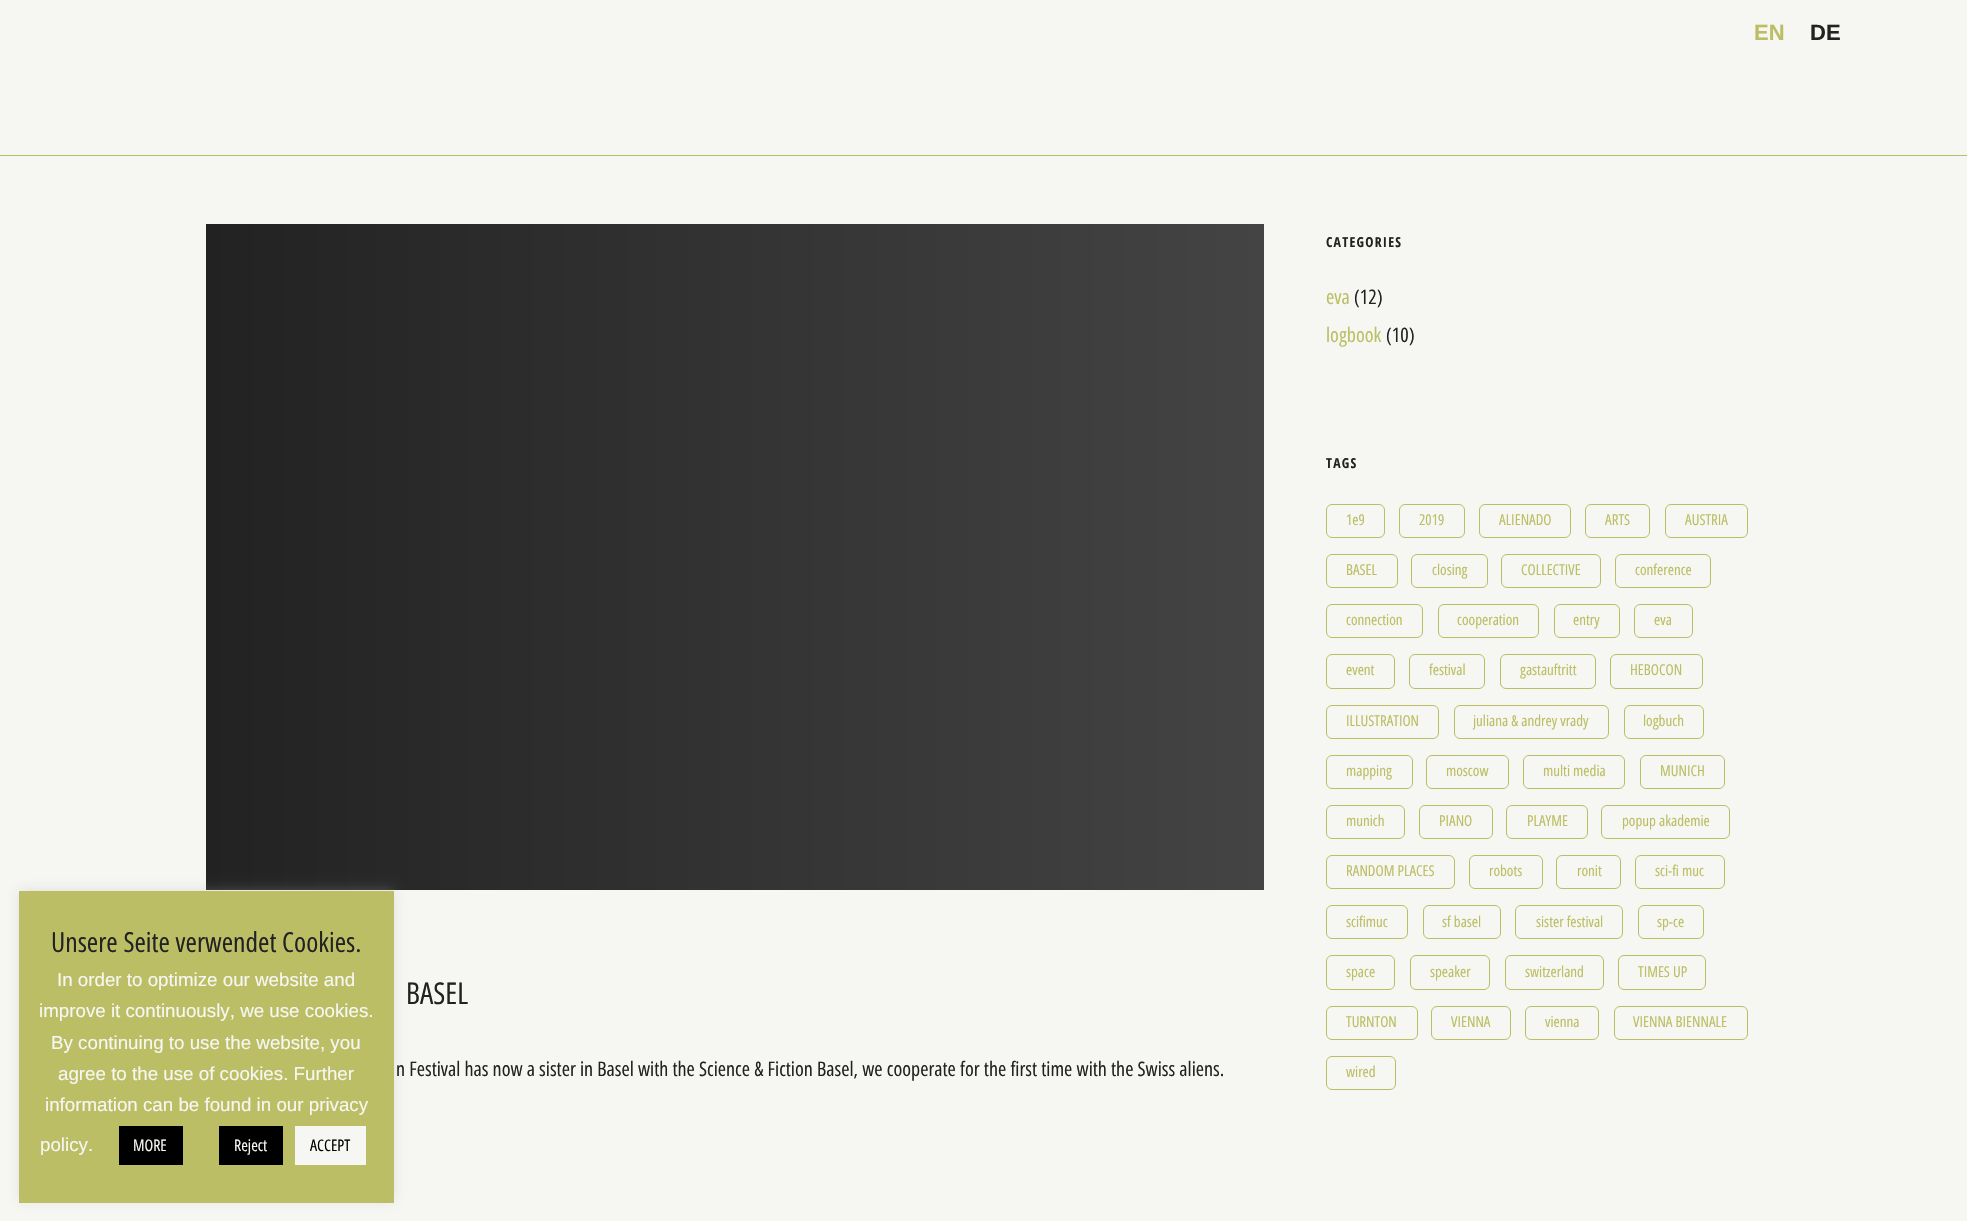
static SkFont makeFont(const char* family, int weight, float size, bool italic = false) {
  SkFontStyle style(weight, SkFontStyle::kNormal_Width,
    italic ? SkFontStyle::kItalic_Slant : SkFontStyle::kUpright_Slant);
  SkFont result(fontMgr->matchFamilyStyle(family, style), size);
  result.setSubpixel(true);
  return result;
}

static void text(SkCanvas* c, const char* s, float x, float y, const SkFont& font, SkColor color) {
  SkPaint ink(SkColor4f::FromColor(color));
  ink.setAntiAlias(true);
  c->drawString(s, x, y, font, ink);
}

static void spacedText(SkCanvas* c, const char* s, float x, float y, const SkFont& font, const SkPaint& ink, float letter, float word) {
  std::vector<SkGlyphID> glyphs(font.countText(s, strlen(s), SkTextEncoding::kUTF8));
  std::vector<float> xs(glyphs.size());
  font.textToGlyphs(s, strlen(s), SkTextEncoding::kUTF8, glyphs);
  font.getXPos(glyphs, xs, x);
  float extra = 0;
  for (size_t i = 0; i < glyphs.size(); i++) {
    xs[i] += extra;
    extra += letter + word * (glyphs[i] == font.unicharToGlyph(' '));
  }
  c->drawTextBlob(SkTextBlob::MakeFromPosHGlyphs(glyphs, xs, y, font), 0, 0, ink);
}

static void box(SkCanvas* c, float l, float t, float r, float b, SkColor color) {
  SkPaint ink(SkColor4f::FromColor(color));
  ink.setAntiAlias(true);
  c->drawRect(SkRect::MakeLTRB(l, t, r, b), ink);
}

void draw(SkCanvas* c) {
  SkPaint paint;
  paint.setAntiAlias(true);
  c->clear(0xfff6f7f2);
  {
    const SkColor colors[] = {0xff222222, 0xff444444, 0xff666666};
    const float stops[] = {0, 1, 1};
    const SkPoint ends[] = {{206, 557}, {1264, 557}};
    paint.setShader(SkGradientShader::MakeLinear(ends, colors, stops, 3, SkTileMode::kClamp));
    paint.setAlpha(255);
  }
  c->drawRect(SkRect::MakeLTRB(206, 224, 1264, 890), paint);
  paint.setShader(nullptr);
  paint.setColor(0x4dacabab);
  paint.setMaskFilter(SkMaskFilter::MakeBlur(kNormal_SkBlurStyle, 6));
  c->drawRect(SkRect::MakeLTRB(19, 890, 394, 1201), paint);
  paint.setMaskFilter(nullptr);
  box(c, 19, 891, 394, 1203, 0xffbbbe64);
  SkFont face1 = makeFont("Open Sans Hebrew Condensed", 400, 27.5f);
  text(c, "Unsere Seite verwendet Cookies.", 51, 952, face1, 0xff222222);
  SkFont face2 = makeFont("Liberation Sans", 400, 18.75f);
  text(c, "In order to optimize our website and", 57, 986, face2, 0xfff6f7f2);
  text(c, "improve it continuously, we use cookies.", 39, 1017, face2, 0xfff6f7f2);
  text(c, "By continuing to use the website, you", 51, 1049, face2, 0xfff6f7f2);
  text(c, "agree to the use of cookies. Further", 58, 1080, face2, 0xfff6f7f2);
  text(c, "information can be found in our privacy", 45, 1111, face2, 0xfff6f7f2);
  text(c, "policy.", 40, 1151, face2, 0xfff6f7f2);
  box(c, 119, 1126, 183, 1165, 0xff000000);
  SkFont face3 = makeFont("Open Sans Hebrew Condensed", 400, 16);
  text(c, "MORE", 133, 1151, face3, 0xfff6f7f2);
  box(c, 219, 1126, 283, 1165, 0xff000000);
  text(c, "Reject", 234, 1151, face3, 0xfff6f7f2);
  box(c, 295, 1126, 366, 1165, 0xfff6f7f2);
  text(c, "ACCEPT", 310, 1151, face3, 0xff000000);
  box(c, 0, 155, 1967, 156, 0xffbbbe64);
  SkFont face4 = makeFont("Liberation Sans", 700, 22);
  text(c, "EN", 1754, 40, face4, 0xffbbbe64);
  text(c, "DE", 1810, 40, face4, 0xff222222);
  SkFont face5 = makeFont("Open Sans Hebrew Condensed", 400, 30);
  text(c, "BASEL", 406, 1004, face5, 0xff222222);
  SkFont face6 = makeFont("Open Sans Hebrew Condensed", 400, 20);
  text(c, "n Festival has now a sister in Basel with the Science & Fiction Basel, we cooperate for the first time with the Swiss aliens.", 396, 1076, face6, 0xff222222);
  SkFont face7 = makeFont("Open Sans Condensed", 700, 13.75f);
  paint.setColor(0xff222222);
  spacedText(c, "CATEGORIES", 1326, 247, face7, paint, 1.25f, 0);
  text(c, "eva", 1326, 304, face6, 0xffbbbe64);
  text(c, "(12)", 1354, 304, face6, 0xff222222);
  text(c, "logbook", 1326, 342, face6, 0xffbbbe64);
  text(c, "(10)", 1386, 342, face6, 0xff222222);
  spacedText(c, "TAGS", 1326, 468, face7, paint, 1.25f, 0);
  paint.setStyle(SkPaint::kStroke_Style);
  paint.setStrokeWidth(1);
  paint.setColor(0xffbbbe64);
  c->drawRoundRect(SkRect::MakeLTRB(1326.5f, 504.5f, 1384.5f, 537.5f), 5.5f, 5.5f, paint);
  SkFont face8 = makeFont("Open Sans Hebrew Condensed", 400, 15);
  text(c, "1e9", 1346, 525, face8, 0xffbbbe64);
  c->drawRoundRect(SkRect::MakeLTRB(1399.5f, 504.5f, 1464.5f, 537.5f), 5.5f, 5.5f, paint);
  text(c, "2019", 1419, 525, face8, 0xffbbbe64);
  c->drawRoundRect(SkRect::MakeLTRB(1479.5f, 504.5f, 1570.5f, 537.5f), 5.5f, 5.5f, paint);
  text(c, "ALIENADO", 1499, 525, face8, 0xffbbbe64);
  c->drawRoundRect(SkRect::MakeLTRB(1585.5f, 504.5f, 1649.5f, 537.5f), 5.5f, 5.5f, paint);
  text(c, "ARTS", 1605, 525, face8, 0xffbbbe64);
  c->drawRoundRect(SkRect::MakeLTRB(1665.5f, 504.5f, 1747.5f, 537.5f), 5.5f, 5.5f, paint);
  text(c, "AUSTRIA", 1685, 525, face8, 0xffbbbe64);
  c->drawRoundRect(SkRect::MakeLTRB(1326.5f, 554.5f, 1397.5f, 587.5f), 5.5f, 5.5f, paint);
  text(c, "BASEL", 1346, 575, face8, 0xffbbbe64);
  c->drawRoundRect(SkRect::MakeLTRB(1411.5f, 554.5f, 1487.5f, 587.5f), 5.5f, 5.5f, paint);
  text(c, "closing", 1432, 575, face8, 0xffbbbe64);
  c->drawRoundRect(SkRect::MakeLTRB(1501.5f, 554.5f, 1600.5f, 587.5f), 5.5f, 5.5f, paint);
  text(c, "COLLECTIVE", 1521, 575, face8, 0xffbbbe64);
  c->drawRoundRect(SkRect::MakeLTRB(1615.5f, 554.5f, 1710.5f, 587.5f), 5.5f, 5.5f, paint);
  text(c, "conference", 1635, 575, face8, 0xffbbbe64);
  c->drawRoundRect(SkRect::MakeLTRB(1326.5f, 604.5f, 1422.5f, 637.5f), 5.5f, 5.5f, paint);
  text(c, "connection", 1346, 625, face8, 0xffbbbe64);
  c->drawRoundRect(SkRect::MakeLTRB(1438.5f, 604.5f, 1538.5f, 637.5f), 5.5f, 5.5f, paint);
  text(c, "cooperation", 1457, 625, face8, 0xffbbbe64);
  c->drawRoundRect(SkRect::MakeLTRB(1554.5f, 604.5f, 1619.5f, 637.5f), 5.5f, 5.5f, paint);
  text(c, "entry", 1573, 625, face8, 0xffbbbe64);
  c->drawRoundRect(SkRect::MakeLTRB(1634.5f, 604.5f, 1692.5f, 637.5f), 5.5f, 5.5f, paint);
  text(c, "eva", 1654, 625, face8, 0xffbbbe64);
  c->drawRoundRect(SkRect::MakeLTRB(1326.5f, 654.5f, 1394.5f, 688.5f), 5.5f, 5.5f, paint);
  text(c, "event", 1346, 675, face8, 0xffbbbe64);
  c->drawRoundRect(SkRect::MakeLTRB(1409.5f, 654.5f, 1484.5f, 688.5f), 5.5f, 5.5f, paint);
  text(c, "festival", 1429, 675, face8, 0xffbbbe64);
  c->drawRoundRect(SkRect::MakeLTRB(1500.5f, 654.5f, 1595.5f, 688.5f), 5.5f, 5.5f, paint);
  text(c, "gastauftritt", 1520, 675, face8, 0xffbbbe64);
  c->drawRoundRect(SkRect::MakeLTRB(1610.5f, 654.5f, 1702.5f, 688.5f), 5.5f, 5.5f, paint);
  text(c, "HEBOCON", 1630, 675, face8, 0xffbbbe64);
  c->drawRoundRect(SkRect::MakeLTRB(1326.5f, 705.5f, 1438.5f, 738.5f), 5.5f, 5.5f, paint);
  text(c, "ILLUSTRATION", 1346, 726, face8, 0xffbbbe64);
  c->drawRoundRect(SkRect::MakeLTRB(1454.5f, 705.5f, 1608.5f, 738.5f), 5.5f, 5.5f, paint);
  text(c, "juliana & andrey vrady", 1473, 726, face8, 0xffbbbe64);
  c->drawRoundRect(SkRect::MakeLTRB(1624.5f, 705.5f, 1703.5f, 738.5f), 5.5f, 5.5f, paint);
  text(c, "logbuch", 1643, 726, face8, 0xffbbbe64);
  c->drawRoundRect(SkRect::MakeLTRB(1326.5f, 755.5f, 1412.5f, 788.5f), 5.5f, 5.5f, paint);
  text(c, "mapping", 1346, 776, face8, 0xffbbbe64);
  c->drawRoundRect(SkRect::MakeLTRB(1426.5f, 755.5f, 1508.5f, 788.5f), 5.5f, 5.5f, paint);
  text(c, "moscow", 1446, 776, face8, 0xffbbbe64);
  c->drawRoundRect(SkRect::MakeLTRB(1523.5f, 755.5f, 1624.5f, 788.5f), 5.5f, 5.5f, paint);
  text(c, "multi media", 1543, 776, face8, 0xffbbbe64);
  c->drawRoundRect(SkRect::MakeLTRB(1640.5f, 755.5f, 1724.5f, 788.5f), 5.5f, 5.5f, paint);
  text(c, "MUNICH", 1660, 776, face8, 0xffbbbe64);
  c->drawRoundRect(SkRect::MakeLTRB(1326.5f, 805.5f, 1404.5f, 838.5f), 5.5f, 5.5f, paint);
  text(c, "munich", 1346, 826, face8, 0xffbbbe64);
  c->drawRoundRect(SkRect::MakeLTRB(1419.5f, 805.5f, 1492.5f, 838.5f), 5.5f, 5.5f, paint);
  text(c, "PIANO", 1439, 826, face8, 0xffbbbe64);
  c->drawRoundRect(SkRect::MakeLTRB(1506.5f, 805.5f, 1587.5f, 838.5f), 5.5f, 5.5f, paint);
  text(c, "PLAYME", 1527, 826, face8, 0xffbbbe64);
  c->drawRoundRect(SkRect::MakeLTRB(1601.5f, 805.5f, 1729.5f, 838.5f), 5.5f, 5.5f, paint);
  text(c, "popup akademie", 1622, 826, face8, 0xffbbbe64);
  c->drawRoundRect(SkRect::MakeLTRB(1326.5f, 855.5f, 1454.5f, 888.5f), 5.5f, 5.5f, paint);
  text(c, "RANDOM PLACES", 1346, 876, face8, 0xffbbbe64);
  c->drawRoundRect(SkRect::MakeLTRB(1469.5f, 855.5f, 1542.5f, 888.5f), 5.5f, 5.5f, paint);
  text(c, "robots", 1489, 876, face8, 0xffbbbe64);
  c->drawRoundRect(SkRect::MakeLTRB(1556.5f, 855.5f, 1620.5f, 888.5f), 5.5f, 5.5f, paint);
  text(c, "ronit", 1577, 876, face8, 0xffbbbe64);
  c->drawRoundRect(SkRect::MakeLTRB(1635.5f, 855.5f, 1724.5f, 888.5f), 5.5f, 5.5f, paint);
  text(c, "sci-fi muc", 1655, 876, face8, 0xffbbbe64);
  c->drawRoundRect(SkRect::MakeLTRB(1326.5f, 905.5f, 1407.5f, 938.5f), 5.5f, 5.5f, paint);
  text(c, "scifimuc", 1346, 927, face8, 0xffbbbe64);
  c->drawRoundRect(SkRect::MakeLTRB(1423.5f, 905.5f, 1500.5f, 938.5f), 5.5f, 5.5f, paint);
  text(c, "sf basel", 1442, 927, face8, 0xffbbbe64);
  c->drawRoundRect(SkRect::MakeLTRB(1515.5f, 905.5f, 1622.5f, 938.5f), 5.5f, 5.5f, paint);
  text(c, "sister festival", 1536, 927, face8, 0xffbbbe64);
  c->drawRoundRect(SkRect::MakeLTRB(1638.5f, 905.5f, 1703.5f, 938.5f), 5.5f, 5.5f, paint);
  text(c, "sp-ce", 1657, 927, face8, 0xffbbbe64);
  c->drawRoundRect(SkRect::MakeLTRB(1326.5f, 955.5f, 1394.5f, 989.5f), 5.5f, 5.5f, paint);
  text(c, "space", 1346, 977, face8, 0xffbbbe64);
  c->drawRoundRect(SkRect::MakeLTRB(1410.5f, 955.5f, 1489.5f, 989.5f), 5.5f, 5.5f, paint);
  text(c, "speaker", 1430, 977, face8, 0xffbbbe64);
  c->drawRoundRect(SkRect::MakeLTRB(1505.5f, 955.5f, 1603.5f, 989.5f), 5.5f, 5.5f, paint);
  text(c, "switzerland", 1525, 977, face8, 0xffbbbe64);
  c->drawRoundRect(SkRect::MakeLTRB(1618.5f, 955.5f, 1705.5f, 989.5f), 5.5f, 5.5f, paint);
  text(c, "TIMES UP", 1638, 977, face8, 0xffbbbe64);
  c->drawRoundRect(SkRect::MakeLTRB(1326.5f, 1006.5f, 1417.5f, 1039.5f), 5.5f, 5.5f, paint);
  text(c, "TURNTON", 1346, 1027, face8, 0xffbbbe64);
  c->drawRoundRect(SkRect::MakeLTRB(1431.5f, 1006.5f, 1510.5f, 1039.5f), 5.5f, 5.5f, paint);
  text(c, "VIENNA", 1451, 1027, face8, 0xffbbbe64);
  c->drawRoundRect(SkRect::MakeLTRB(1525.5f, 1006.5f, 1598.5f, 1039.5f), 5.5f, 5.5f, paint);
  text(c, "vienna", 1545, 1027, face8, 0xffbbbe64);
  c->drawRoundRect(SkRect::MakeLTRB(1614.5f, 1006.5f, 1747.5f, 1039.5f), 5.5f, 5.5f, paint);
  text(c, "VIENNA BIENNALE", 1633, 1027, face8, 0xffbbbe64);
  c->drawRoundRect(SkRect::MakeLTRB(1326.5f, 1056.5f, 1395.5f, 1089.5f), 5.5f, 5.5f, paint);
  text(c, "wired", 1346, 1077, face8, 0xffbbbe64);
}
